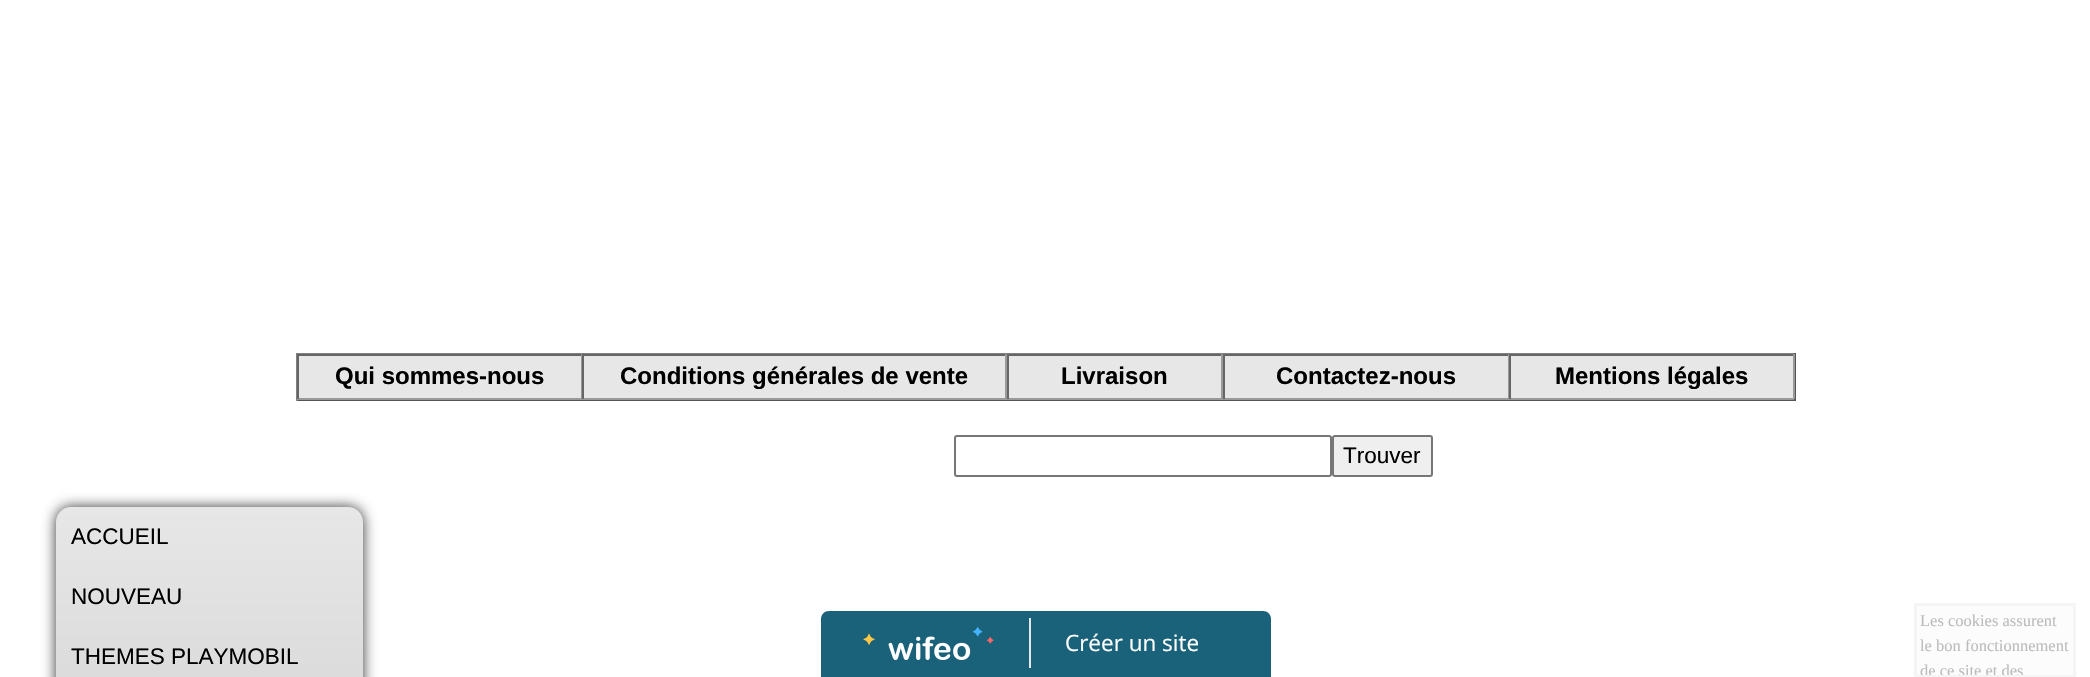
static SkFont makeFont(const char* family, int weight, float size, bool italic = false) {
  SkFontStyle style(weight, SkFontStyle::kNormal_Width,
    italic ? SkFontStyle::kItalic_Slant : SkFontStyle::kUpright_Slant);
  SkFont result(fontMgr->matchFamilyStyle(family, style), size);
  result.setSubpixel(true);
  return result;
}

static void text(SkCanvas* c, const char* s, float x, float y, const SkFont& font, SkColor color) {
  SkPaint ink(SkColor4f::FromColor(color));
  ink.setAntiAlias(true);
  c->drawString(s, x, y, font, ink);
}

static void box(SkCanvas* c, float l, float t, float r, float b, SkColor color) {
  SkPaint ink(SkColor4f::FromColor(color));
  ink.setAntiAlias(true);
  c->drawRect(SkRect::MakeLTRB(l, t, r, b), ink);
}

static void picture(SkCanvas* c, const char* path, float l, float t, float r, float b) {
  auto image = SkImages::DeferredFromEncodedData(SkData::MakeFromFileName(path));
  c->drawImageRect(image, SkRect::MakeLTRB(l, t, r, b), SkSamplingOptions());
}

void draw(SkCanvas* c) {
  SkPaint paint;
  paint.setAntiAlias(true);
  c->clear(0xffffffff);
  box(c, 296, 353, 1796, 354, 0xff808080);
  box(c, 1794, 353, 1796, 401, 0xff555555);
  box(c, 296, 399, 1796, 401, 0xff555555);
  box(c, 296, 353, 298, 401, 0xff808080);
  box(c, 299, 356, 581, 398, 0xffe7e7e7);
  box(c, 297, 354, 1794, 356, 0xff666666);
  box(c, 581, 354, 582, 399, 0xff999999);
  box(c, 297, 398, 582, 400, 0xff999999);
  box(c, 297, 354, 299, 399, 0xff666666);
  SkFont face1 = makeFont("Liberation Sans", 700, 24);
  text(c, "Qui sommes-nous", 335, 384, face1, 0xff000000);
  box(c, 584, 356, 1005, 398, 0xffe7e7e7);
  box(c, 1005, 354, 1007, 399, 0xff999999);
  box(c, 582, 398, 1007, 400, 0xff999999);
  box(c, 582, 354, 584, 399, 0xff666666);
  text(c, "Conditions générales de vente", 620, 384, face1, 0xff000000);
  box(c, 1009, 356, 1221, 398, 0xffe7e7e7);
  box(c, 1221, 354, 1223, 399, 0xff999999);
  box(c, 1007, 398, 1223, 400, 0xff999999);
  box(c, 1007, 354, 1009, 399, 0xff666666);
  text(c, "Livraison", 1061, 384, face1, 0xff000000);
  box(c, 1225, 356, 1508, 398, 0xffe7e7e7);
  box(c, 1508, 354, 1509, 399, 0xff999999);
  box(c, 1223, 398, 1509, 400, 0xff999999);
  box(c, 1223, 354, 1225, 399, 0xff666666);
  text(c, "Contactez-nous", 1276, 384, face1, 0xff000000);
  box(c, 1511, 356, 1793, 398, 0xffe7e7e7);
  box(c, 1793, 354, 1795, 399, 0xff999999);
  box(c, 1509, 398, 1794, 400, 0xff999999);
  box(c, 1509, 354, 1511, 399, 0xff666666);
  text(c, "Mentions légales", 1555, 384, face1, 0xff000000);
  paint.setStyle(SkPaint::kStroke_Style);
  paint.setStrokeWidth(2);
  paint.setColor(0xff767676);
  c->drawRoundRect(SkRect::MakeLTRB(955, 436, 1331, 476), 2, 2, paint);
  paint.setStyle(SkPaint::kFill_Style);
  paint.setColor(0xffefefef);
  c->drawRoundRect(SkRect::MakeLTRB(1333, 436, 1432, 476), 2, 2, paint);
  paint.setStyle(SkPaint::kStroke_Style);
  paint.setColor(0xff767676);
  c->drawRoundRect(SkRect::MakeLTRB(1333, 436, 1432, 476), 2, 2, paint);
  SkFont face2 = makeFont("Liberation Sans", 400, 22.5f);
  text(c, "Trouver", 1343, 463, face2, 0xff000000);
  paint.setStyle(SkPaint::kFill_Style);
  paint.setColor(0xff333333);
  paint.setMaskFilter(SkMaskFilter::MakeBlur(kNormal_SkBlurStyle, 7));
  c->drawRoundRect(SkRect::MakeLTRB(56, 507, 363, 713), 15, 15, paint);
  paint.setMaskFilter(nullptr);
  {
    const SkColor colors[] = {0xffe7e7e7, 0xffbfbfbf};
    const float stops[] = {0, 1};
    const SkPoint ends[] = {{209, 507}, {209, 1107}};
    paint.setShader(SkGradientShader::MakeLinear(ends, colors, stops, 2, SkTileMode::kClamp));
    paint.setAlpha(255);
  }
  c->drawRoundRect(SkRect::MakeLTRB(56, 507, 363, 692), 15, 15, paint);
  text(c, "ACCUEIL", 71, 544, face2, 0xff000000);
  text(c, "NOUVEAU", 71, 604, face2, 0xff000000);
  text(c, "THEMES PLAYMOBIL", 71, 664, face2, 0xff000000);
  paint.setShader(nullptr);
  paint.setColor(0xff1a627a);
  c->drawPath(SkPathBuilder().moveTo(829, 611).lineTo(1263, 611).cubicTo(1267.5f, 611, 1271, 614.5f, 1271, 619).lineTo(1271, 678).lineTo(821, 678).lineTo(821, 619).cubicTo(821, 614.5f, 824.5f, 611, 829, 611).close().detach(), paint);
  box(c, 1029, 618, 1031, 668, 0xffe7e7e7);
  picture(c, "img_01.png", 863, 627, 994, 660);
  SkFont face3 = makeFont("Open Sans", 400, 22.5f);
  text(c, "Créer un site", 1065, 651, face3, 0xffffffff);
  paint.setColor(0xfffcfcfc);
  c->drawRect(SkRect::MakeLTRB(1915.5f, 604.5f, 2074.5f, 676.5f), paint);
  paint.setStyle(SkPaint::kStroke_Style);
  paint.setStrokeWidth(3);
  paint.setColor(0xfff5f5f5);
  c->drawRect(SkRect::MakeLTRB(1915.5f, 604.5f, 2074.5f, 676.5f), paint);
  SkFont face4 = makeFont("Liberation Serif", 400, 16.5f);
  text(c, "Les cookies assurent", 1920, 626, face4, 0xffbcbcbc);
  text(c, "le bon fonctionnement", 1920, 651, face4, 0xffbcbcbc);
  c->save();
  c->clipRect(SkRect::MakeLTRB(1917, 606, 2073, 675));
  text(c, "de ce site et des", 1920, 676, face4, 0xffbcbcbc);
  c->restore();
}
